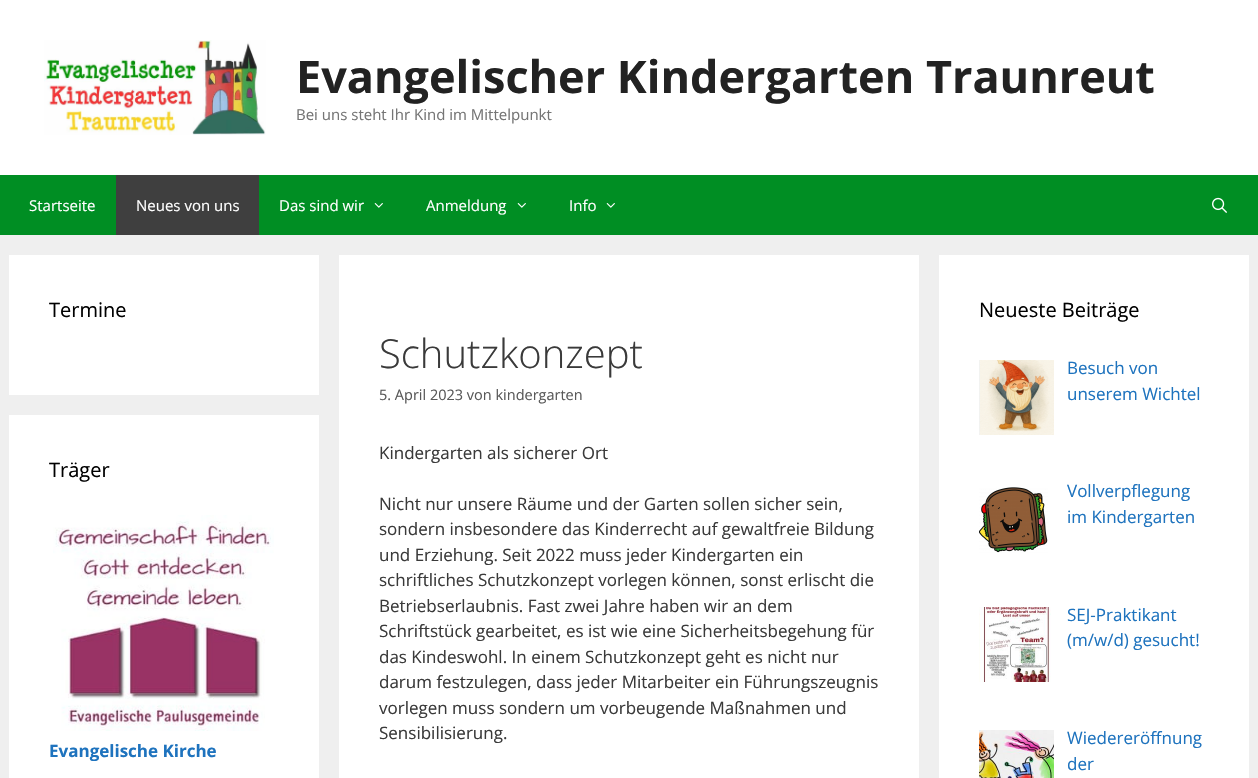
static SkFont makeFont(const char* family, int weight, float size, bool italic = false) {
  SkFontStyle style(weight, SkFontStyle::kNormal_Width,
    italic ? SkFontStyle::kItalic_Slant : SkFontStyle::kUpright_Slant);
  SkFont result(fontMgr->matchFamilyStyle(family, style), size);
  result.setSubpixel(true);
  return result;
}

static void text(SkCanvas* c, const char* s, float x, float y, const SkFont& font, SkColor color) {
  SkPaint ink(SkColor4f::FromColor(color));
  ink.setAntiAlias(true);
  c->drawString(s, x, y, font, ink);
}

static void box(SkCanvas* c, float l, float t, float r, float b, SkColor color) {
  SkPaint ink(SkColor4f::FromColor(color));
  ink.setAntiAlias(true);
  c->drawRect(SkRect::MakeLTRB(l, t, r, b), ink);
}

static void picture(SkCanvas* c, const char* path, float l, float t, float r, float b) {
  auto image = SkImages::DeferredFromEncodedData(SkData::MakeFromFileName(path));
  c->drawImageRect(image, SkRect::MakeLTRB(l, t, r, b), SkSamplingOptions());
}

void draw(SkCanvas* c) {
  SkPaint paint;
  paint.setAntiAlias(true);
  c->clear(0xffefefef);
  box(c, 0, 0, 1258, 175, 0xffffffff);
  picture(c, "img_01.png", 44, 40, 266, 135);
  SkFont face1 = makeFont("Open Sans", 700, 45);
  text(c, "Evangelischer Kindergarten Traunreut", 296, 93, face1, 0xff222222);
  SkFont face2 = makeFont("Open Sans", 400, 15);
  text(c, "Bei uns steht Ihr Kind im Mittelpunkt", 296, 120, face2, 0xff757575);
  box(c, 0, 175, 1258, 235, 0xff008e23);
  text(c, "Startseite", 29, 211, face2, 0xffffffff);
  box(c, 116, 175, 259, 235, 0xff3f3f3f);
  text(c, "Neues von uns", 136, 211, face2, 0xffffffff);
  text(c, "Das sind wir", 279, 211, face2, 0xffffffff);
  picture(c, "img_02.png", 374, 203, 383, 208);
  text(c, "Anmeldung", 426, 211, face2, 0xffffffff);
  picture(c, "img_02.png", 517, 203, 526, 208);
  text(c, "Info", 569, 211, face2, 0xffffffff);
  picture(c, "img_02.png", 606, 203, 615, 208);
  picture(c, "img_03.png", 1212, 197, 1227, 213);
  box(c, 9, 255, 319, 395, 0xffffffff);
  SkFont face3 = makeFont("Open Sans", 400, 20);
  text(c, "Termine", 49, 317, face3, 0xff000000);
  box(c, 9, 415, 319, 778, 0xffffffff);
  text(c, "Träger", 49, 477, face3, 0xff000000);
  picture(c, "img_04.png", 53, 515, 274, 731);
  SkFont face4 = makeFont("Open Sans", 700, 17);
  text(c, "Evangelische Kirche", 49, 757, face4, 0xff1e73be);
  box(c, 339, 255, 919, 778, 0xffffffff);
  SkFont face5 = makeFont("Open Sans", 300, 40);
  text(c, "Schutzkonzept", 379, 368, face5, 0xff3a3a3a);
  SkFont face6 = makeFont("Open Sans", 400, 14.5f);
  text(c, "5. April 2023 von kindergarten", 379, 400, face6, 0xff595959);
  SkFont face7 = makeFont("Open Sans", 400, 17);
  text(c, "Kindergarten als sicherer Ort", 379, 459, face7, 0xff3a3a3a);
  text(c, "Nicht nur unsere Räume und der Garten sollen sicher sein,", 379, 510, face7, 0xff3a3a3a);
  text(c, "sondern insbesondere das Kinderrecht auf gewaltfreie Bildung", 379, 535, face7, 0xff3a3a3a);
  text(c, "und Erziehung. Seit 2022 muss jeder Kindergarten ein", 379, 561, face7, 0xff3a3a3a);
  text(c, "schriftliches Schutzkonzept vorlegen können, sonst erlischt die", 379, 586, face7, 0xff3a3a3a);
  text(c, "Betriebserlaubnis. Fast zwei Jahre haben wir an dem", 379, 612, face7, 0xff3a3a3a);
  text(c, "Schriftstück gearbeitet, es ist wie eine Sicherheitsbegehung für", 379, 637, face7, 0xff3a3a3a);
  text(c, "das Kindeswohl. In einem Schutzkonzept geht es nicht nur", 379, 663, face7, 0xff3a3a3a);
  text(c, "darum festzulegen, dass jeder Mitarbeiter ein Führungszeugnis", 379, 688, face7, 0xff3a3a3a);
  text(c, "vorlegen muss sondern um vorbeugende Maßnahmen und", 379, 714, face7, 0xff3a3a3a);
  text(c, "Sensibilisierung.", 379, 739, face7, 0xff3a3a3a);
  box(c, 939, 255, 1249, 778, 0xffffffff);
  text(c, "Neueste Beiträge", 979, 317, face3, 0xff000000);
  picture(c, "img_05.png", 979, 360, 1054, 435);
  text(c, "Besuch von", 1067, 374, face7, 0xff1e73be);
  text(c, "unserem Wichtel", 1067, 400, face7, 0xff1e73be);
  picture(c, "img_06.png", 979, 487, 1048, 553);
  text(c, "Vollverpflegung", 1067, 497, face7, 0xff1e73be);
  text(c, "im Kindergarten", 1067, 523, face7, 0xff1e73be);
  picture(c, "img_07.png", 979, 607, 1051, 682);
  text(c, "SEJ-Praktikant", 1067, 621, face7, 0xff1e73be);
  text(c, "(m/w/d) gesucht!", 1067, 646, face7, 0xff1e73be);
  picture(c, "img_08.png", 979, 730, 1054, 778);
  text(c, "Wiedereröffnung", 1067, 744, face7, 0xff1e73be);
  text(c, "der", 1067, 770, face7, 0xff1e73be);
}
